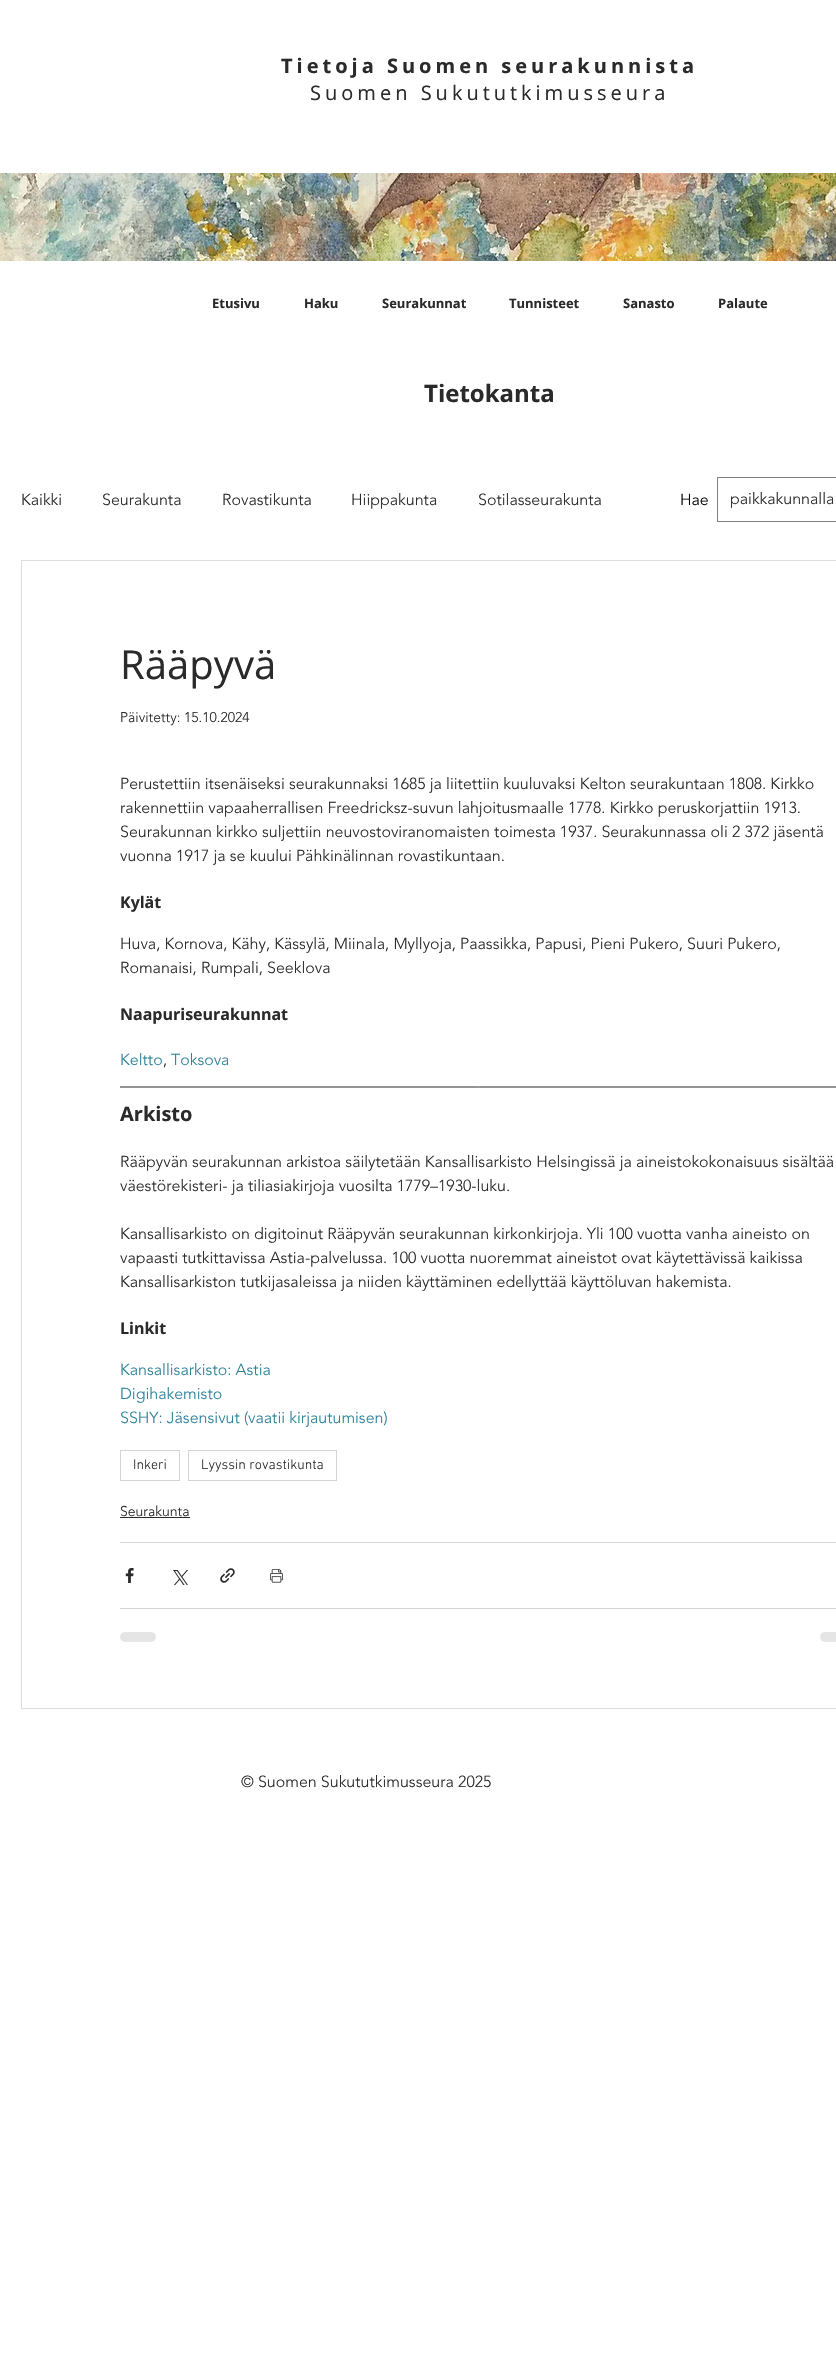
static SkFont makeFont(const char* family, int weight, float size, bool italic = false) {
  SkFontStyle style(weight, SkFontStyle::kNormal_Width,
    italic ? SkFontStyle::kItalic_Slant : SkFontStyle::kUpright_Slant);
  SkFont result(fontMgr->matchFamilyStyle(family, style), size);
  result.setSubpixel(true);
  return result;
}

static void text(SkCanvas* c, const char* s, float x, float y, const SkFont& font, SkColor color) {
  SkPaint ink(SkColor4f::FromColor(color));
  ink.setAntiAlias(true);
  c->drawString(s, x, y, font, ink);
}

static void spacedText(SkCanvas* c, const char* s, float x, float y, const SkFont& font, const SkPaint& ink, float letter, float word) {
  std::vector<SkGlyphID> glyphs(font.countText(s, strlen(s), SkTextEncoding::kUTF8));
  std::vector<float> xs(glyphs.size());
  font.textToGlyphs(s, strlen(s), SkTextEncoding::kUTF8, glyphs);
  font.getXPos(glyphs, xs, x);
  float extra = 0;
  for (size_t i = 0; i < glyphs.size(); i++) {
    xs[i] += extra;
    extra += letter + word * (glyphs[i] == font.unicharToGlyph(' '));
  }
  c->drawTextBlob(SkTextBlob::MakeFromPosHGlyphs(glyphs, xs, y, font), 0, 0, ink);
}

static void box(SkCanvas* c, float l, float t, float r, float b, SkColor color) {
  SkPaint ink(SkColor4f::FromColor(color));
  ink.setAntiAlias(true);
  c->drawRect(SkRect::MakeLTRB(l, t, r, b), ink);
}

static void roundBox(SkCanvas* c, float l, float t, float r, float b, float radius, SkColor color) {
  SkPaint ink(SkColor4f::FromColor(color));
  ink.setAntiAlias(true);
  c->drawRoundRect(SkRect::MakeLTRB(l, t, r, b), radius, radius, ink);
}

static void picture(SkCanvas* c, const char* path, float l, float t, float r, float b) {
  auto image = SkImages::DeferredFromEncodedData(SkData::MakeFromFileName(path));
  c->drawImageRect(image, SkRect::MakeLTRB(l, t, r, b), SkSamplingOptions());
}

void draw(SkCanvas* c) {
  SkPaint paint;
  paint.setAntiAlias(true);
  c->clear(0xffffffff);
  SkFont face1 = makeFont("Open Sans", 700, 20);
  paint.setColor(0xff2a2a2a);
  spacedText(c, "Tietoja Suomen seurakunnista", 281, 73, face1, paint, 4, 0);
  SkFont face2 = makeFont("Open Sans", 400, 20);
  spacedText(c, "Suomen Sukututkimusseura", 310, 100, face2, paint, 4, 0);
  picture(c, "img_01.png", 0, 173, 836, 261);
  SkFont face3 = makeFont("Open Sans", 700, 13);
  text(c, "Etusivu", 212, 308, face3, 0xff2a2a2a);
  text(c, "Haku", 304, 308, face3, 0xff2a2a2a);
  text(c, "Seurakunnat", 382, 308, face3, 0xff2a2a2a);
  text(c, "Tunnisteet", 509, 308, face3, 0xff2a2a2a);
  text(c, "Sanasto", 623, 308, face3, 0xff2a2a2a);
  text(c, "Palaute", 718, 308, face3, 0xff2a2a2a);
  SkFont face4 = makeFont("Open Sans", 700, 24);
  text(c, "Tietokanta", 424, 402, face4, 0xff2a2a2a);
  paint.setStyle(SkPaint::kStroke_Style);
  paint.setStrokeWidth(1);
  paint.setColor(0xff7f7f7f);
  c->drawRect(SkRect::MakeLTRB(717.5f, 477.5f, 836.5f, 521.5f), paint);
  SkFont face5 = makeFont("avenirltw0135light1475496", 300, 16);
  text(c, "paikkakunnalla", 730, 504, face5, 0xff2a2a2a);
  text(c, "Kaikki", 21, 505, face5, 0xff2a2a2a);
  text(c, "Seurakunta", 102, 505, face5, 0xff2a2a2a);
  text(c, "Rovastikunta", 222, 505, face5, 0xff2a2a2a);
  text(c, "Hiippakunta", 351, 505, face5, 0xff2a2a2a);
  text(c, "Sotilasseurakunta", 478, 505, face5, 0xff2a2a2a);
  paint.setColor(0xffdddddd);
  c->drawRect(SkRect::MakeLTRB(21.5f, 560.5f, 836.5f, 1708.5f), paint);
  SkFont face6 = makeFont("Open Sans", 400, 40);
  text(c, "Rääpyvä", 120, 679, face6, 0xff2a2a2a);
  SkFont face7 = makeFont("avenirltw0135light1475496", 300, 14);
  text(c, "Päivitetty: 15.10.2024", 120, 722, face7, 0xff2a2a2a);
  text(c, "Perustettiin itsenäiseksi seurakunnaksi 1685 ja liitettiin kuuluvaksi Kelton seurakuntaan 1808. Kirkko", 120, 789, face5, 0xff2a2a2a);
  text(c, "rakennettiin vapaaherrallisen Freedricksz-suvun lahjoitusmaalle 1778. Kirkko peruskorjattiin 1913.", 120, 813, face5, 0xff2a2a2a);
  text(c, "Seurakunnan kirkko suljettiin neuvostoviranomaisten toimesta 1937. Seurakunnassa oli 2 372 jäsentä", 120, 837, face5, 0xff2a2a2a);
  text(c, "vuonna 1917 ja se kuului Pähkinälinnan rovastikuntaan.", 120, 861, face5, 0xff2a2a2a);
  SkFont face8 = makeFont("Open Sans", 700, 16);
  text(c, "Kylät", 120, 908, face8, 0xff2a2a2a);
  text(c, "Huva, Kornova, Kähy, Kässylä, Miinala, Myllyoja, Paassikka, Papusi, Pieni Pukero, Suuri Pukero,", 120, 949, face5, 0xff2a2a2a);
  text(c, "Romanaisi, Rumpali, Seeklova", 120, 973, face5, 0xff2a2a2a);
  text(c, "Naapuriseurakunnat", 120, 1020, face8, 0xff2a2a2a);
  text(c, "Keltto", 120, 1065, face5, 0xff2b8097);
  text(c, ",", 163, 1065, face5, 0xff2a2a2a);
  text(c, "Toksova", 171, 1065, face5, 0xff2b8097);
  paint.setColor(0xff2a2a2a);
  c->drawPath(SkPathBuilder().moveTo(120, 1087).lineTo(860, 1087).detach(), paint);
  text(c, "Arkisto", 120, 1121, face1, 0xff2a2a2a);
  text(c, "Rääpyvän seurakunnan arkistoa säilytetään Kansallisarkisto Helsingissä ja aineistokokonaisuus sisältää", 120, 1167, face5, 0xff2a2a2a);
  text(c, "väestörekisteri- ja tiliasiakirjoja vuosilta 1779–1930-luku.", 120, 1191, face5, 0xff2a2a2a);
  text(c, "Kansallisarkisto on digitoinut Rääpyvän seurakunnan kirkonkirjoja. Yli 100 vuotta vanha aineisto on", 120, 1239, face5, 0xff2a2a2a);
  text(c, "vapaasti tutkittavissa Astia-palvelussa. 100 vuotta nuoremmat aineistot ovat käytettävissä kaikissa", 120, 1263, face5, 0xff2a2a2a);
  text(c, "Kansallisarkiston tutkijasaleissa ja niiden käyttäminen edellyttää käyttöluvan hakemista.", 120, 1287, face5, 0xff2a2a2a);
  text(c, "Linkit", 120, 1334, face8, 0xff2a2a2a);
  text(c, "Kansallisarkisto: Astia", 120, 1375, face5, 0xff2b8097);
  text(c, "Digihakemisto", 120, 1399, face5, 0xff2b8097);
  text(c, "SSHY: Jäsensivut (vaatii kirjautumisen)", 120, 1423, face5, 0xff2b8097);
  paint.setColor(0xffd4d4d4);
  c->drawRect(SkRect::MakeLTRB(120.5f, 1450.5f, 179.5f, 1480.5f), paint);
  SkFont face9 = makeFont("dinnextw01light", 300, 14);
  text(c, "Inkeri", 133, 1469, face9, 0xff2a2a2a);
  c->drawRect(SkRect::MakeLTRB(188.5f, 1450.5f, 336.5f, 1480.5f), paint);
  text(c, "Lyyssin rovastikunta", 201, 1469, face9, 0xff2a2a2a);
  text(c, "Seurakunta", 120, 1516, face7, 0xff2a2a2a);
  box(c, 120, 1517, 190, 1518, 0xff2a2a2a);
  box(c, 120, 1542, 836, 1543, 0xffd4d4d4);
  picture(c, "img_02.png", 125, 1568, 134, 1583);
  picture(c, "img_03.png", 173, 1570, 188, 1585);
  picture(c, "img_04.png", 220, 1568, 235, 1583);
  picture(c, "img_05.png", 270, 1569, 283, 1583);
  box(c, 120, 1608, 836, 1609, 0xffd4d4d4);
  roundBox(c, 120, 1632, 156, 1642, 5, 0xffe5e5e5);
  roundBox(c, 820, 1632, 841, 1642, 5, 0xffe5e5e5);
  text(c, "Hae", 680, 505, face5, 0xff000000);
  text(c, "© Suomen Sukututkimusseura 2025", 241, 1787, face5, 0xff2a2a2a);
}
